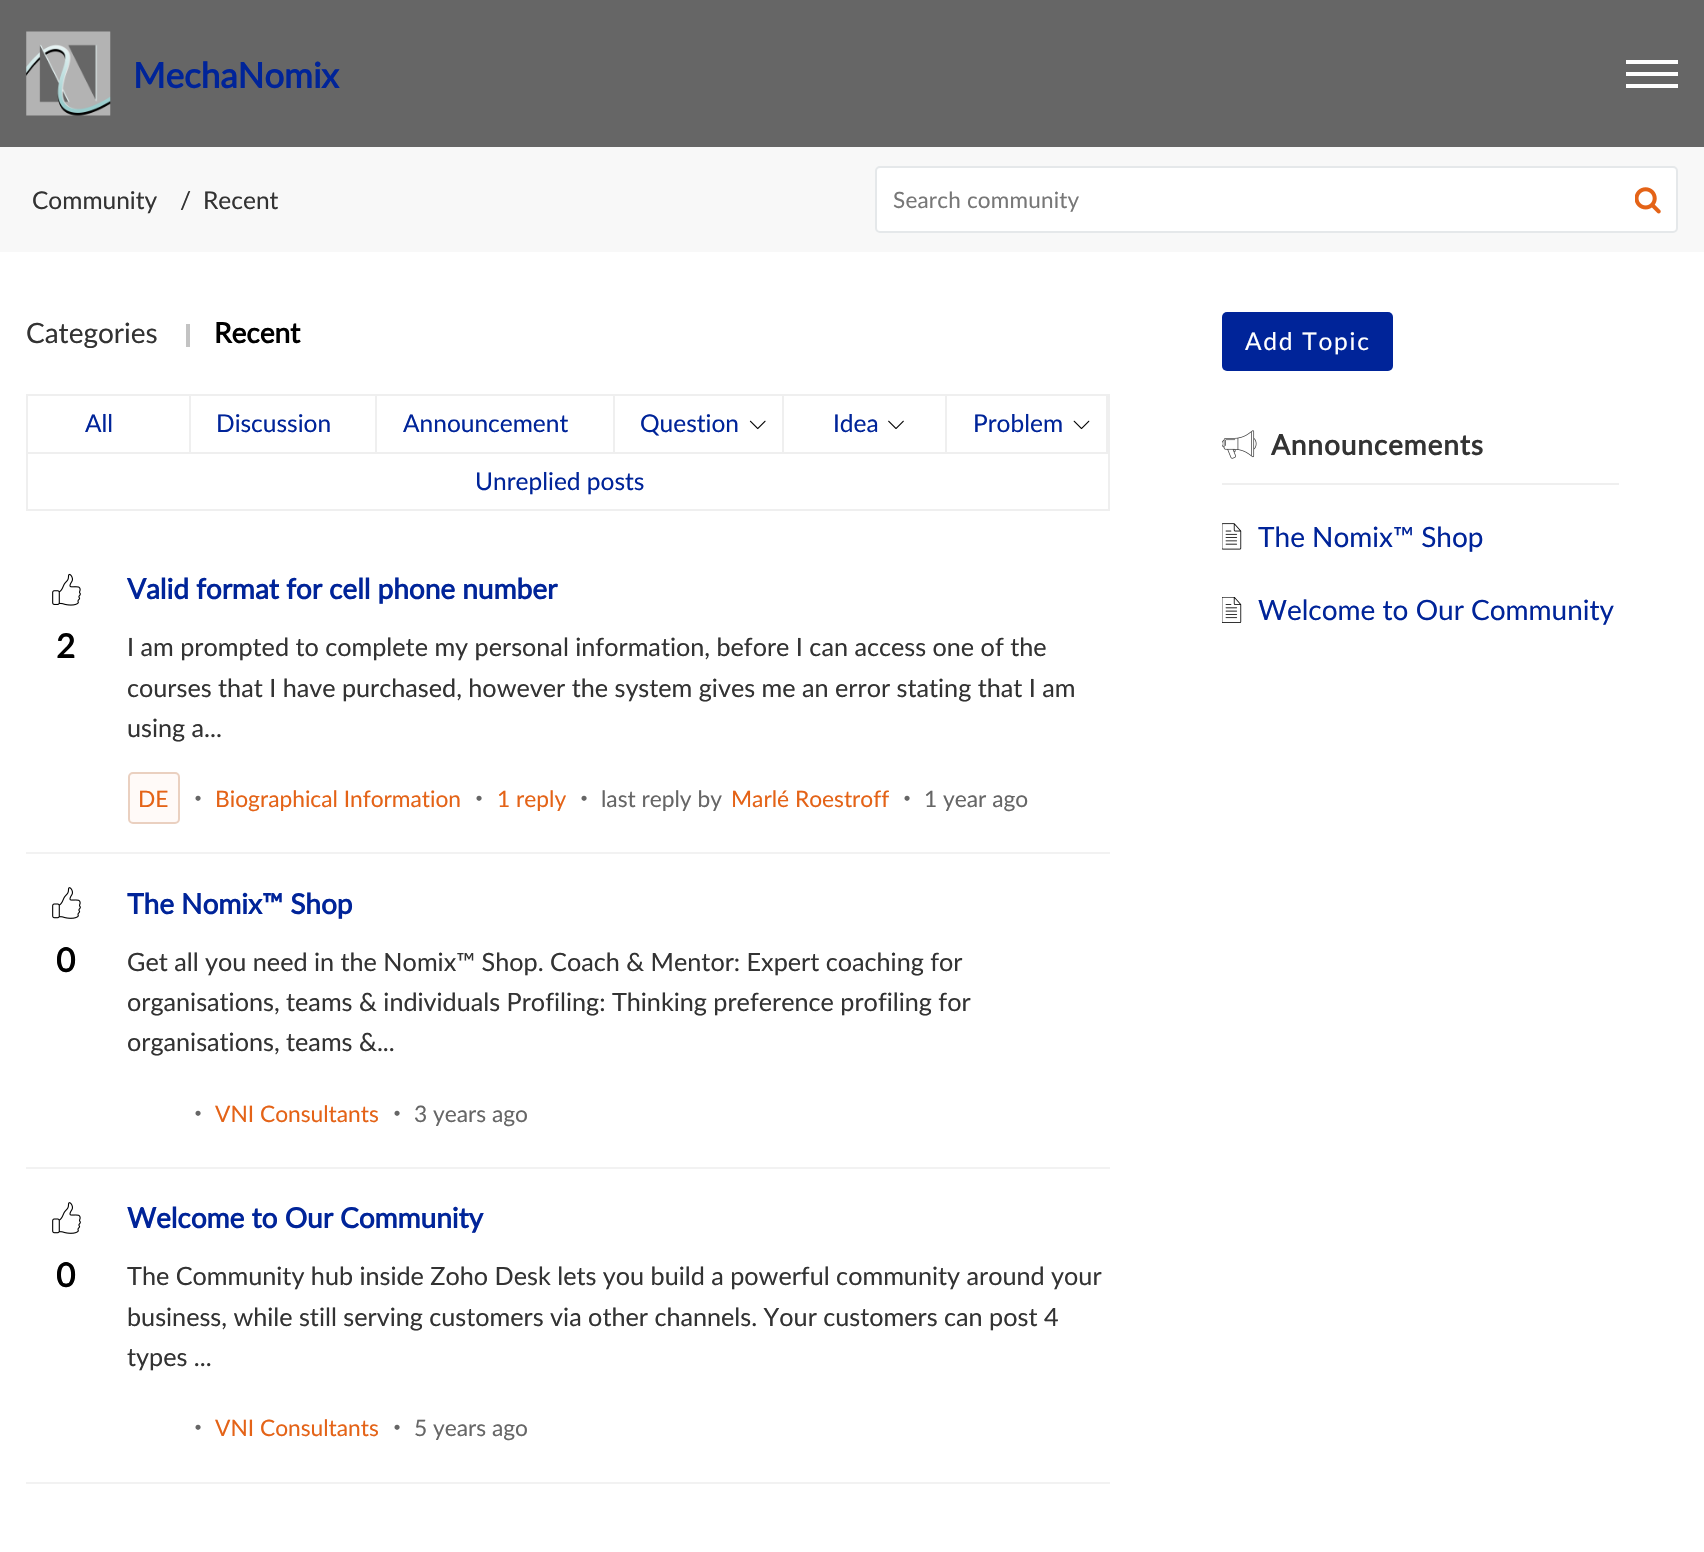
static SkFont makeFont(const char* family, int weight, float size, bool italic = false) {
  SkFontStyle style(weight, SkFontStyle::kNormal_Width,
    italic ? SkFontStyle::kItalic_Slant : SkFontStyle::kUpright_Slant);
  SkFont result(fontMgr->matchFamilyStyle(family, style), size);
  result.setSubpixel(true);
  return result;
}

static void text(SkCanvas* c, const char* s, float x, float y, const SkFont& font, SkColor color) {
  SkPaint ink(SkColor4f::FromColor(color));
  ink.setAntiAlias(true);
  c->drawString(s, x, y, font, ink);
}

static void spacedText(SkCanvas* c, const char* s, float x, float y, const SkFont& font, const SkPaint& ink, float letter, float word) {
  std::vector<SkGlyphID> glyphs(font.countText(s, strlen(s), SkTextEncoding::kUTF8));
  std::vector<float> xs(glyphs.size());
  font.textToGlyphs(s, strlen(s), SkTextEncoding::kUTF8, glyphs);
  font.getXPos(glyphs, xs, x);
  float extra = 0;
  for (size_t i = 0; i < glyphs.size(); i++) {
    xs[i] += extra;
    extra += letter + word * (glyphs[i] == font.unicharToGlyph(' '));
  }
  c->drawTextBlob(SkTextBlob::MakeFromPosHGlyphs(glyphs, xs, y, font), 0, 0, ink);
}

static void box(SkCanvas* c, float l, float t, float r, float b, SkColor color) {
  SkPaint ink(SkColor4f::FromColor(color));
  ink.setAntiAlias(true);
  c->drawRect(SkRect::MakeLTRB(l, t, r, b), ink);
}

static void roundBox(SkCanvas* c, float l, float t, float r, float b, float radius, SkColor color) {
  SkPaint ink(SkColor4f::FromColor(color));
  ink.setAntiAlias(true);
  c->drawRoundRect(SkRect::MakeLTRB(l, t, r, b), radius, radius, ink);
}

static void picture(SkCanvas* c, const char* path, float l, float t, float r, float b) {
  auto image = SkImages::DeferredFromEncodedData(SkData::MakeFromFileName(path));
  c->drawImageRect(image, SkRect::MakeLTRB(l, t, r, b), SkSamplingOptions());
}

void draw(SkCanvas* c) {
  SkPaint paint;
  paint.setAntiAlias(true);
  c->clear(0xffffffff);
  box(c, 0, 0, 1704, 147, 0xff666666);
  picture(c, "img_01.png", 26, 31, 111, 116);
  SkFont face1 = makeFont("Lato", 700, 35);
  text(c, "MechaNomix", 133, 88, face1, 0xff002499);
  box(c, 1626, 72, 1678, 76, 0xffffffff);
  box(c, 1626, 60, 1678, 64, 0xffffffff);
  box(c, 1626, 84, 1678, 88, 0xffffffff);
  box(c, 0, 147, 1704, 252, 0xfff8f8f8);
  SkFont face2 = makeFont("Lato", 400, 24.5f);
  text(c, "Community", 32, 209, face2, 0xff333333);
  text(c, "/", 180, 209, face2, 0xff333333);
  text(c, "Recent", 203, 209, face2, 0xff333333);
  paint.setColor(0xffffffff);
  c->drawRoundRect(SkRect::MakeLTRB(876, 167, 1677, 232), 4, 4, paint);
  paint.setStyle(SkPaint::kStroke_Style);
  paint.setStrokeWidth(2);
  paint.setColor(0xffe5e8ea);
  c->drawRoundRect(SkRect::MakeLTRB(876, 167, 1677, 232), 4, 4, paint);
  SkFont face3 = makeFont("Lato", 400, 22.5f);
  paint.setStyle(SkPaint::kFill_Style);
  paint.setColor(0xff777777);
  spacedText(c, "Search community", 893, 208, face3, paint, 0.2f, 0);
  picture(c, "img_02.png", 1635, 187, 1661, 214);
  SkFont face4 = makeFont("Lato", 400, 28);
  text(c, "Categories", 26, 343, face4, 0xff333333);
  box(c, 186, 324, 190, 347, 0xffc3c3c3);
  SkFont face5 = makeFont("Lato", 700, 28);
  text(c, "Recent", 214, 343, face5, 0xff000000);
  box(c, 1108, 394, 1110, 511, 0xffefefef);
  box(c, 26, 509, 1110, 511, 0xffefefef);
  box(c, 26, 394, 28, 511, 0xffefefef);
  box(c, 28, 394, 376, 396, 0xffefefef);
  box(c, 189, 394, 191, 452, 0xffefefef);
  text(c, "All", 85, 432, face2, 0xff002499);
  box(c, 375, 394, 377, 452, 0xffefefef);
  text(c, "Discussion", 216, 432, face2, 0xff002499);
  box(c, 376, 394, 614, 396, 0xffefefef);
  box(c, 613, 394, 615, 452, 0xffefefef);
  text(c, "Announcement", 403, 432, face2, 0xff002499);
  box(c, 614, 394, 1108, 396, 0xffefefef);
  box(c, 782, 394, 784, 452, 0xffefefef);
  text(c, "Question", 640, 432, face2, 0xff002499);
  picture(c, "img_03.png", 749, 420, 766, 430);
  box(c, 945, 394, 947, 452, 0xffefefef);
  text(c, "Idea", 833, 432, face2, 0xff002499);
  picture(c, "img_04.png", 888, 420, 904, 429);
  box(c, 1106, 394, 1108, 452, 0xffefefef);
  text(c, "Problem", 973, 432, face2, 0xff002499);
  picture(c, "img_05.png", 1073, 420, 1090, 430);
  box(c, 28, 452, 1108, 454, 0xffefefef);
  text(c, "Unreplied posts", 475, 490, face2, 0xff002499);
  box(c, 26, 852, 1110, 854, 0xfff2f2f2);
  picture(c, "img_06.png", 52, 573, 81, 606);
  SkFont face6 = makeFont("Lato", 700, 33);
  text(c, "2", 56, 658, face6, 0xff000000);
  text(c, "Valid format for cell phone number", 127, 599, face5, 0xff002499);
  SkFont face7 = makeFont("Lato", 400, 25.2f);
  text(c, "I am prompted to complete my personal information, before I can access one of the", 127, 656, face7, 0xff333333);
  text(c, "courses that I have purchased, however the system gives me an error stating that I am", 127, 697, face7, 0xff333333);
  text(c, "using a...", 127, 737, face7, 0xff333333);
  paint.setColor(0xfffffaf8);
  c->drawRoundRect(SkRect::MakeLTRB(129, 773, 179, 823), 4, 4, paint);
  paint.setStyle(SkPaint::kStroke_Style);
  paint.setColor(0xffead0c0);
  c->drawRoundRect(SkRect::MakeLTRB(129, 773, 179, 823), 4, 4, paint);
  SkFont face8 = makeFont("Lato", 400, 22.75f);
  text(c, "DE", 138, 807, face8, 0xffe46317);
  text(c, "·", 194, 807, face5, 0xff666666);
  text(c, "Biographical Information", 215, 807, face8, 0xffe46317);
  text(c, "·", 475, 807, face5, 0xff666666);
  text(c, "1 reply", 497, 807, face8, 0xffe46317);
  text(c, "·", 580, 807, face5, 0xff666666);
  text(c, "last reply by", 601, 807, face8, 0xff666666);
  text(c, "Marlé Roestroff", 731, 807, face8, 0xffe46317);
  text(c, "·", 903, 807, face5, 0xff666666);
  text(c, "1 year ago", 924, 807, face8, 0xff666666);
  box(c, 26, 1167, 1110, 1169, 0xfff2f2f2);
  picture(c, "img_07.png", 52, 887, 81, 919);
  text(c, "0", 56, 972, face6, 0xff000000);
  text(c, "The Nomix™ Shop", 127, 914, face5, 0xff002499);
  text(c, "Get all you need in the Nomix™ Shop. Coach & Mentor: Expert coaching for", 127, 971, face7, 0xff333333);
  text(c, "organisations, teams & individuals Profiling: Thinking preference profiling for", 127, 1011, face7, 0xff333333);
  text(c, "organisations, teams &...", 127, 1051, face7, 0xff333333);
  text(c, "·", 194, 1122, face5, 0xff666666);
  text(c, "VNI Consultants", 215, 1122, face8, 0xffe46317);
  text(c, "·", 393, 1122, face5, 0xff666666);
  text(c, "3 years ago", 414, 1122, face8, 0xff666666);
  box(c, 26, 1482, 1110, 1484, 0xfff2f2f2);
  picture(c, "img_07.png", 52, 1202, 81, 1234);
  text(c, "0", 56, 1287, face6, 0xff000000);
  text(c, "Welcome to Our Community", 127, 1228, face5, 0xff002499);
  text(c, "The Community hub inside Zoho Desk lets you build a powerful community around your", 127, 1285, face7, 0xff333333);
  text(c, "business, while still serving customers via other channels. Your customers can post 4", 127, 1326, face7, 0xff333333);
  text(c, "types ...", 127, 1366, face7, 0xff333333);
  text(c, "·", 194, 1436, face5, 0xff666666);
  text(c, "VNI Consultants", 215, 1436, face8, 0xffe46317);
  text(c, "·", 393, 1436, face5, 0xff666666);
  text(c, "5 years ago", 414, 1436, face8, 0xff666666);
  roundBox(c, 1222, 312, 1393, 371, 5, 0xff002499);
  paint.setStyle(SkPaint::kFill_Style);
  paint.setColor(0xffffffff);
  spacedText(c, "Add Topic", 1245, 350, face2, paint, 1.75f, 0);
  box(c, 1222, 483, 1619, 485, 0xffefefef);
  picture(c, "img_08.png", 1222, 430, 1257, 459);
  paint.setColor(0xff333333);
  spacedText(c, "Announcements", 1271, 455, face5, paint, 0.9f, 0);
  picture(c, "img_09.png", 1222, 523, 1242, 550);
  text(c, "The Nomix™ Shop", 1258, 547, face4, 0xff002499);
  picture(c, "img_10.png", 1222, 597, 1242, 623);
  text(c, "Welcome to Our Community", 1258, 620, face4, 0xff002499);
}
